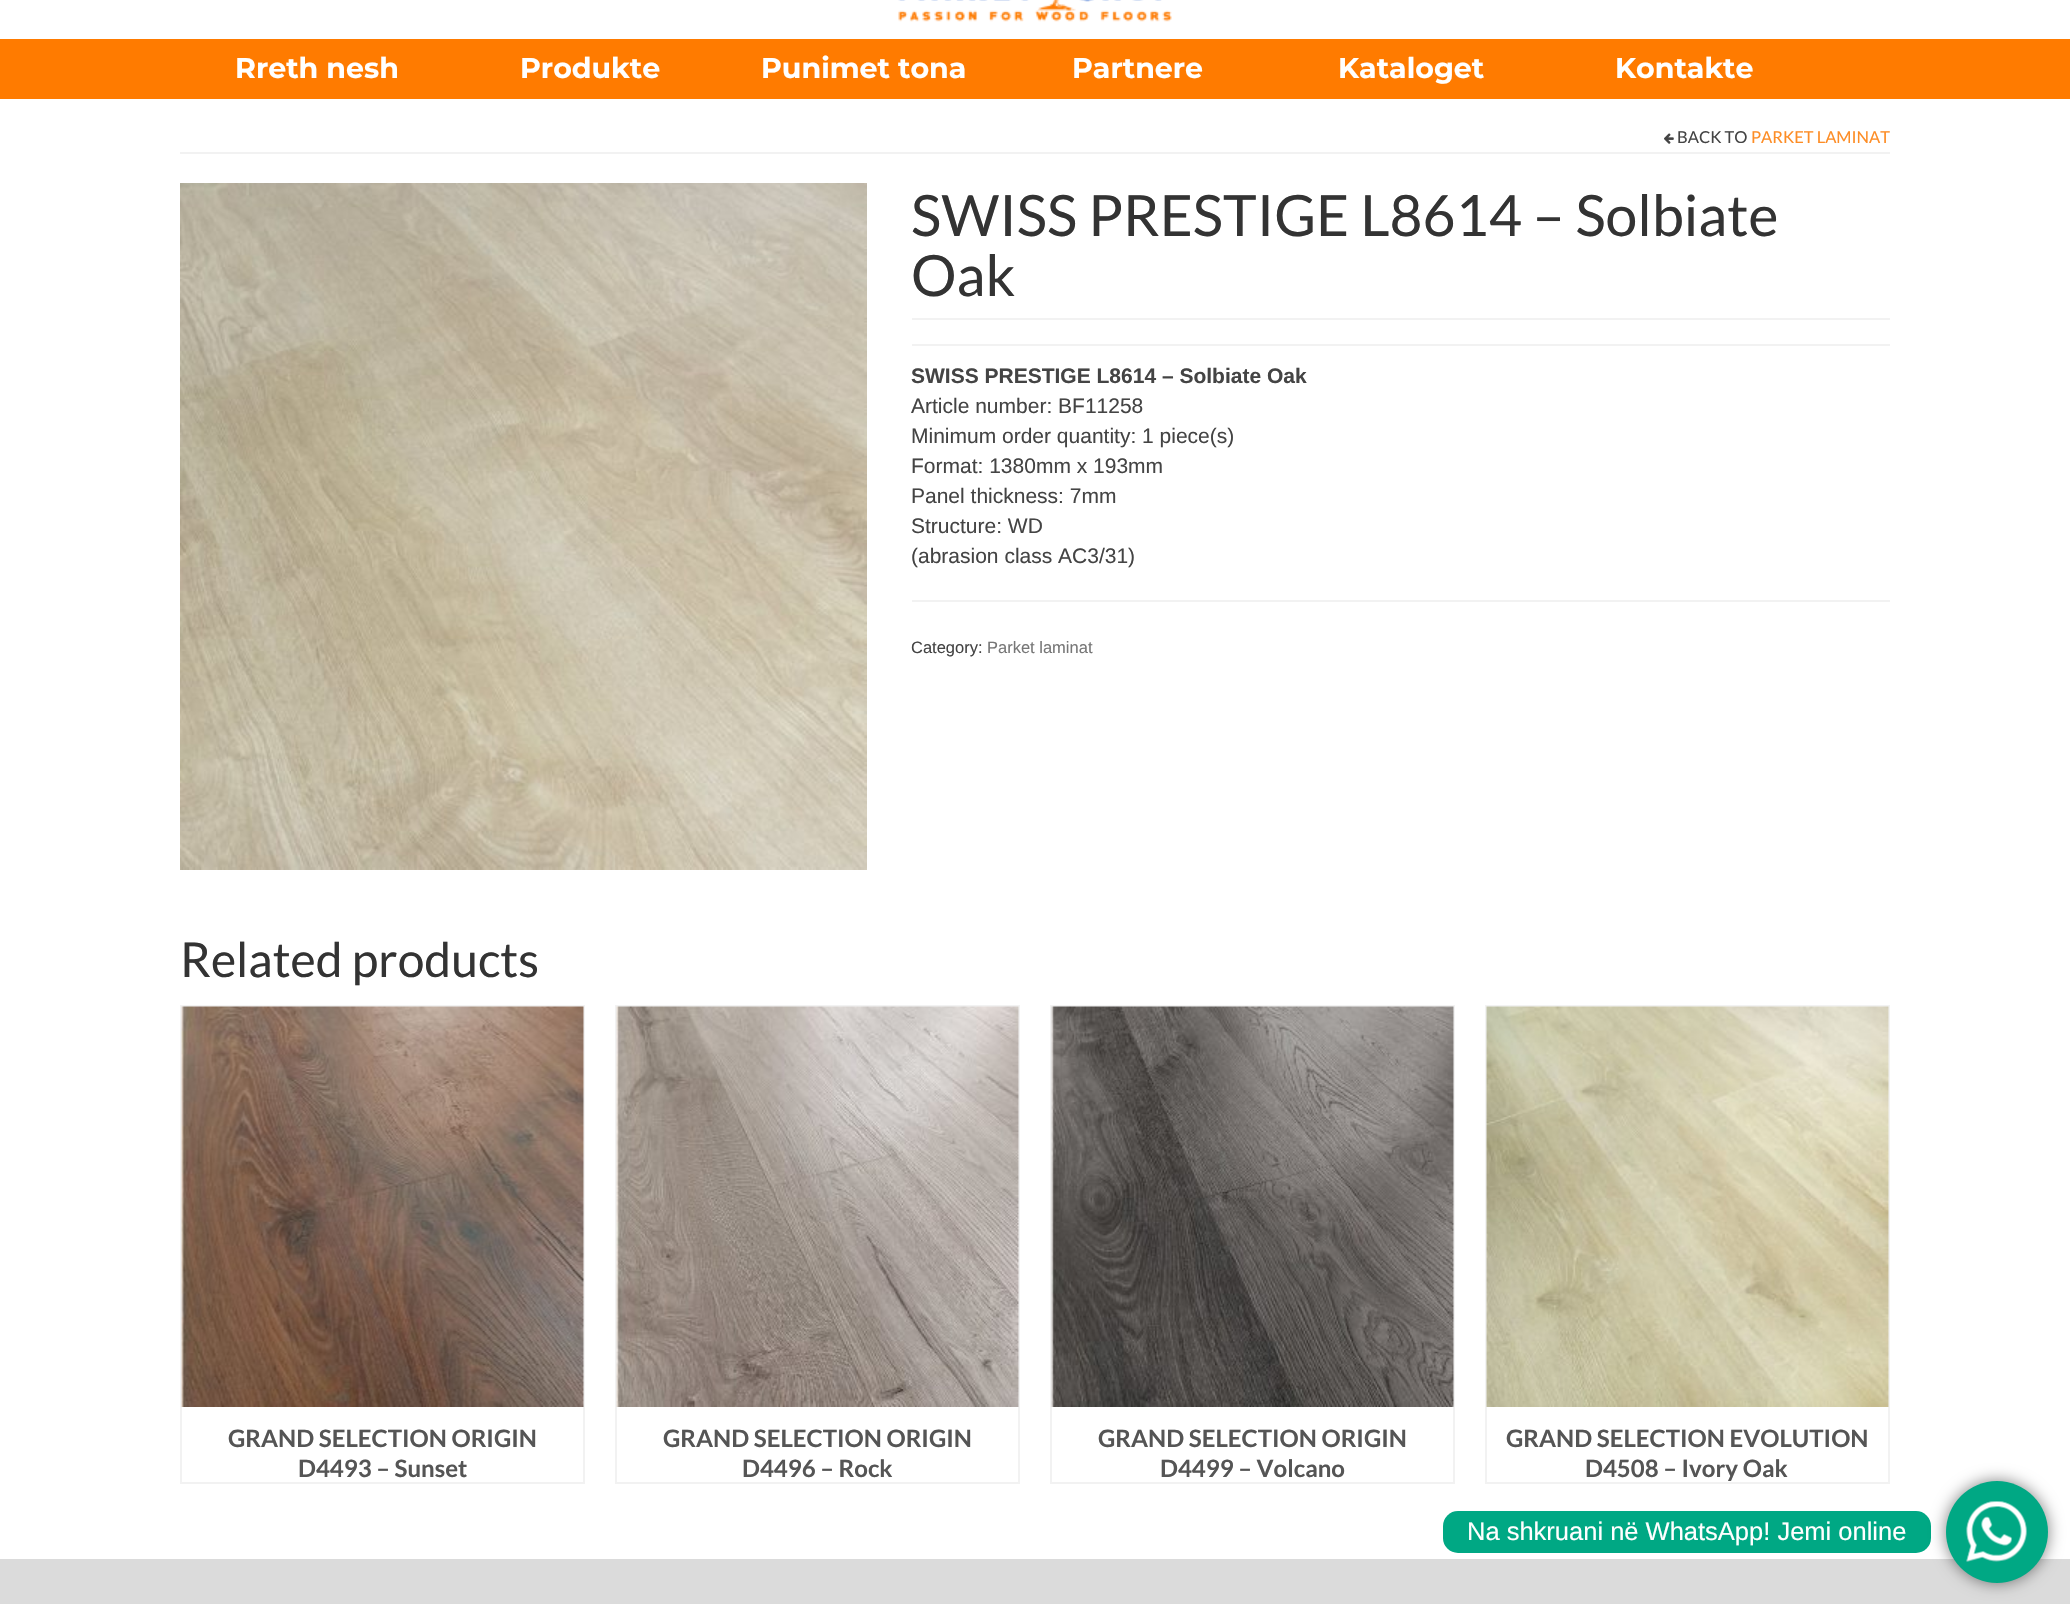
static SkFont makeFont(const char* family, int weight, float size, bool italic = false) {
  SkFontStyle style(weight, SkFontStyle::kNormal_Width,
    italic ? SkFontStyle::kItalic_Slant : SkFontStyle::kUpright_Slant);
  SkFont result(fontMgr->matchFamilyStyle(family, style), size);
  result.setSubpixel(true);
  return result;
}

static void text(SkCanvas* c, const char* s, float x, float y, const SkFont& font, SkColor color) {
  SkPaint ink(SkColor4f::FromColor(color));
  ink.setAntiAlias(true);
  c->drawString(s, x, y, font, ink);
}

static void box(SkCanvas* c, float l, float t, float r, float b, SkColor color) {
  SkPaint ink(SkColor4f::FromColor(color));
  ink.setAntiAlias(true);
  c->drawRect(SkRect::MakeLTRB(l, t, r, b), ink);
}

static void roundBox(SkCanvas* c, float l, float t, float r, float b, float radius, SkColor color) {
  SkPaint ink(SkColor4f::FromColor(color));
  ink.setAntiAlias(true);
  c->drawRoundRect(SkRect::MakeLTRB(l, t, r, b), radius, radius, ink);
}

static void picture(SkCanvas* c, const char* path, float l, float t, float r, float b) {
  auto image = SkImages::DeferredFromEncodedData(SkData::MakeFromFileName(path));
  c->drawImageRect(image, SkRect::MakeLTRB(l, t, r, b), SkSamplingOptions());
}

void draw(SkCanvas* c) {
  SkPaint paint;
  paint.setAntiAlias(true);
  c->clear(0xffffffff);
  picture(c, "img_01.png", 898, 0, 1172, 22);
  box(c, 0, 39, 2070, 99, 0xffff7b00);
  SkFont face1 = makeFont("Montserrat", 100, 28.5f);
  text(c, "Rreth nesh", 235, 78, face1, 0xffffffff);
  text(c, "Produkte", 520, 78, face1, 0xffffffff);
  text(c, "Punimet tona", 761, 78, face1, 0xffffffff);
  text(c, "Partnere", 1072, 78, face1, 0xffffffff);
  text(c, "Kataloget", 1338, 78, face1, 0xffffffff);
  text(c, "Kontakte", 1615, 78, face1, 0xffffffff);
  box(c, 180, 152, 1890, 154, 0xfff2f2f2);
  picture(c, "img_02.png", 1664, 133, 1674, 144);
  SkFont face2 = makeFont("Lato", 400, 16.5f);
  text(c, "BACK TO", 1677, 143, face2, 0xff444444);
  text(c, "PARKET LAMINAT", 1751, 143, face2, 0xfffd8d26);
  picture(c, "img_03.png", 180, 183, 867, 870);
  SkFont face3 = makeFont("Lato", 400, 57);
  text(c, "SWISS PRESTIGE L8614 – Solbiate", 911, 236, face3, 0xff333333);
  text(c, "Oak", 911, 296, face3, 0xff333333);
  box(c, 912, 318, 1890, 320, 0xfff2f2f2);
  box(c, 912, 344, 1890, 346, 0xfff2f2f2);
  SkFont face4 = makeFont("Liberation Sans", 700, 21);
  text(c, "SWISS PRESTIGE L8614 – Solbiate Oak", 911, 383, face4, 0xff444444);
  SkFont face5 = makeFont("Liberation Sans", 400, 21);
  text(c, "Article number: BF11258", 911, 413, face5, 0xff444444);
  text(c, "Minimum order quantity: 1 piece(s)", 911, 443, face5, 0xff444444);
  text(c, "Format: 1380mm x 193mm", 911, 473, face5, 0xff444444);
  text(c, "Panel thickness: 7mm", 911, 503, face5, 0xff444444);
  text(c, "Structure: WD", 911, 533, face5, 0xff444444);
  text(c, "(abrasion class AC3/31)", 911, 563, face5, 0xff444444);
  box(c, 912, 600, 1890, 602, 0xfff2f2f2);
  SkFont face6 = makeFont("Liberation Sans", 400, 16.5f);
  text(c, "Category:", 911, 653, face6, 0xff444444);
  text(c, "Parket laminat", 987, 653, face6, 0xff777777);
  SkFont face7 = makeFont("Lato", 400, 48);
  text(c, "Related products", 180, 977, face7, 0xff333333);
  paint.setStyle(SkPaint::kStroke_Style);
  paint.setStrokeWidth(2);
  paint.setColor(0xfff2f2f2);
  c->drawRect(SkRect::MakeLTRB(181, 1006, 584, 1483), paint);
  picture(c, "img_04.png", 181, 1006, 584, 1407);
  SkFont face8 = makeFont("Lato", 700, 24);
  text(c, "GRAND SELECTION ORIGIN", 228, 1447, face8, 0xff555555);
  text(c, "D4493 – Sunset", 298, 1477, face8, 0xff555555);
  c->drawRect(SkRect::MakeLTRB(616, 1006, 1019, 1483), paint);
  picture(c, "img_05.png", 616, 1006, 1019, 1407);
  text(c, "GRAND SELECTION ORIGIN", 663, 1447, face8, 0xff555555);
  text(c, "D4496 – Rock", 742, 1477, face8, 0xff555555);
  c->drawRect(SkRect::MakeLTRB(1051, 1006, 1454, 1483), paint);
  picture(c, "img_06.png", 1051, 1006, 1454, 1407);
  text(c, "GRAND SELECTION ORIGIN", 1098, 1447, face8, 0xff555555);
  text(c, "D4499 – Volcano", 1160, 1477, face8, 0xff555555);
  c->drawRect(SkRect::MakeLTRB(1486, 1006, 1889, 1483), paint);
  picture(c, "img_07.png", 1486, 1006, 1889, 1407);
  text(c, "GRAND SELECTION EVOLUTION", 1506, 1447, face8, 0xff555555);
  text(c, "D4508 – Ivory Oak", 1585, 1477, face8, 0xff555555);
  roundBox(c, 1443, 1511, 1931, 1553, 15, 0xff00a884);
  SkFont face9 = makeFont("Liberation Sans", 400, 25.5f);
  text(c, "Na shkruani në WhatsApp! Jemi online", 1467, 1540, face9, 0xffffffff);
  box(c, 0, 1559, 2070, 1604, 0xffdbdbdb);
  paint.setStyle(SkPaint::kFill_Style);
  paint.setColor(0x80000000);
  paint.setMaskFilter(SkMaskFilter::MakeBlur(kNormal_SkBlurStyle, 8));
  c->drawRoundRect(SkRect::MakeLTRB(1946, 1481, 2048, 1583), 51, 51, paint);
  paint.setMaskFilter(nullptr);
  paint.setColor(0xff00a884);
  c->drawCircle(1997, 1532, 51, paint);
  picture(c, "img_08.png", 1966, 1501, 2027, 1562);
}
